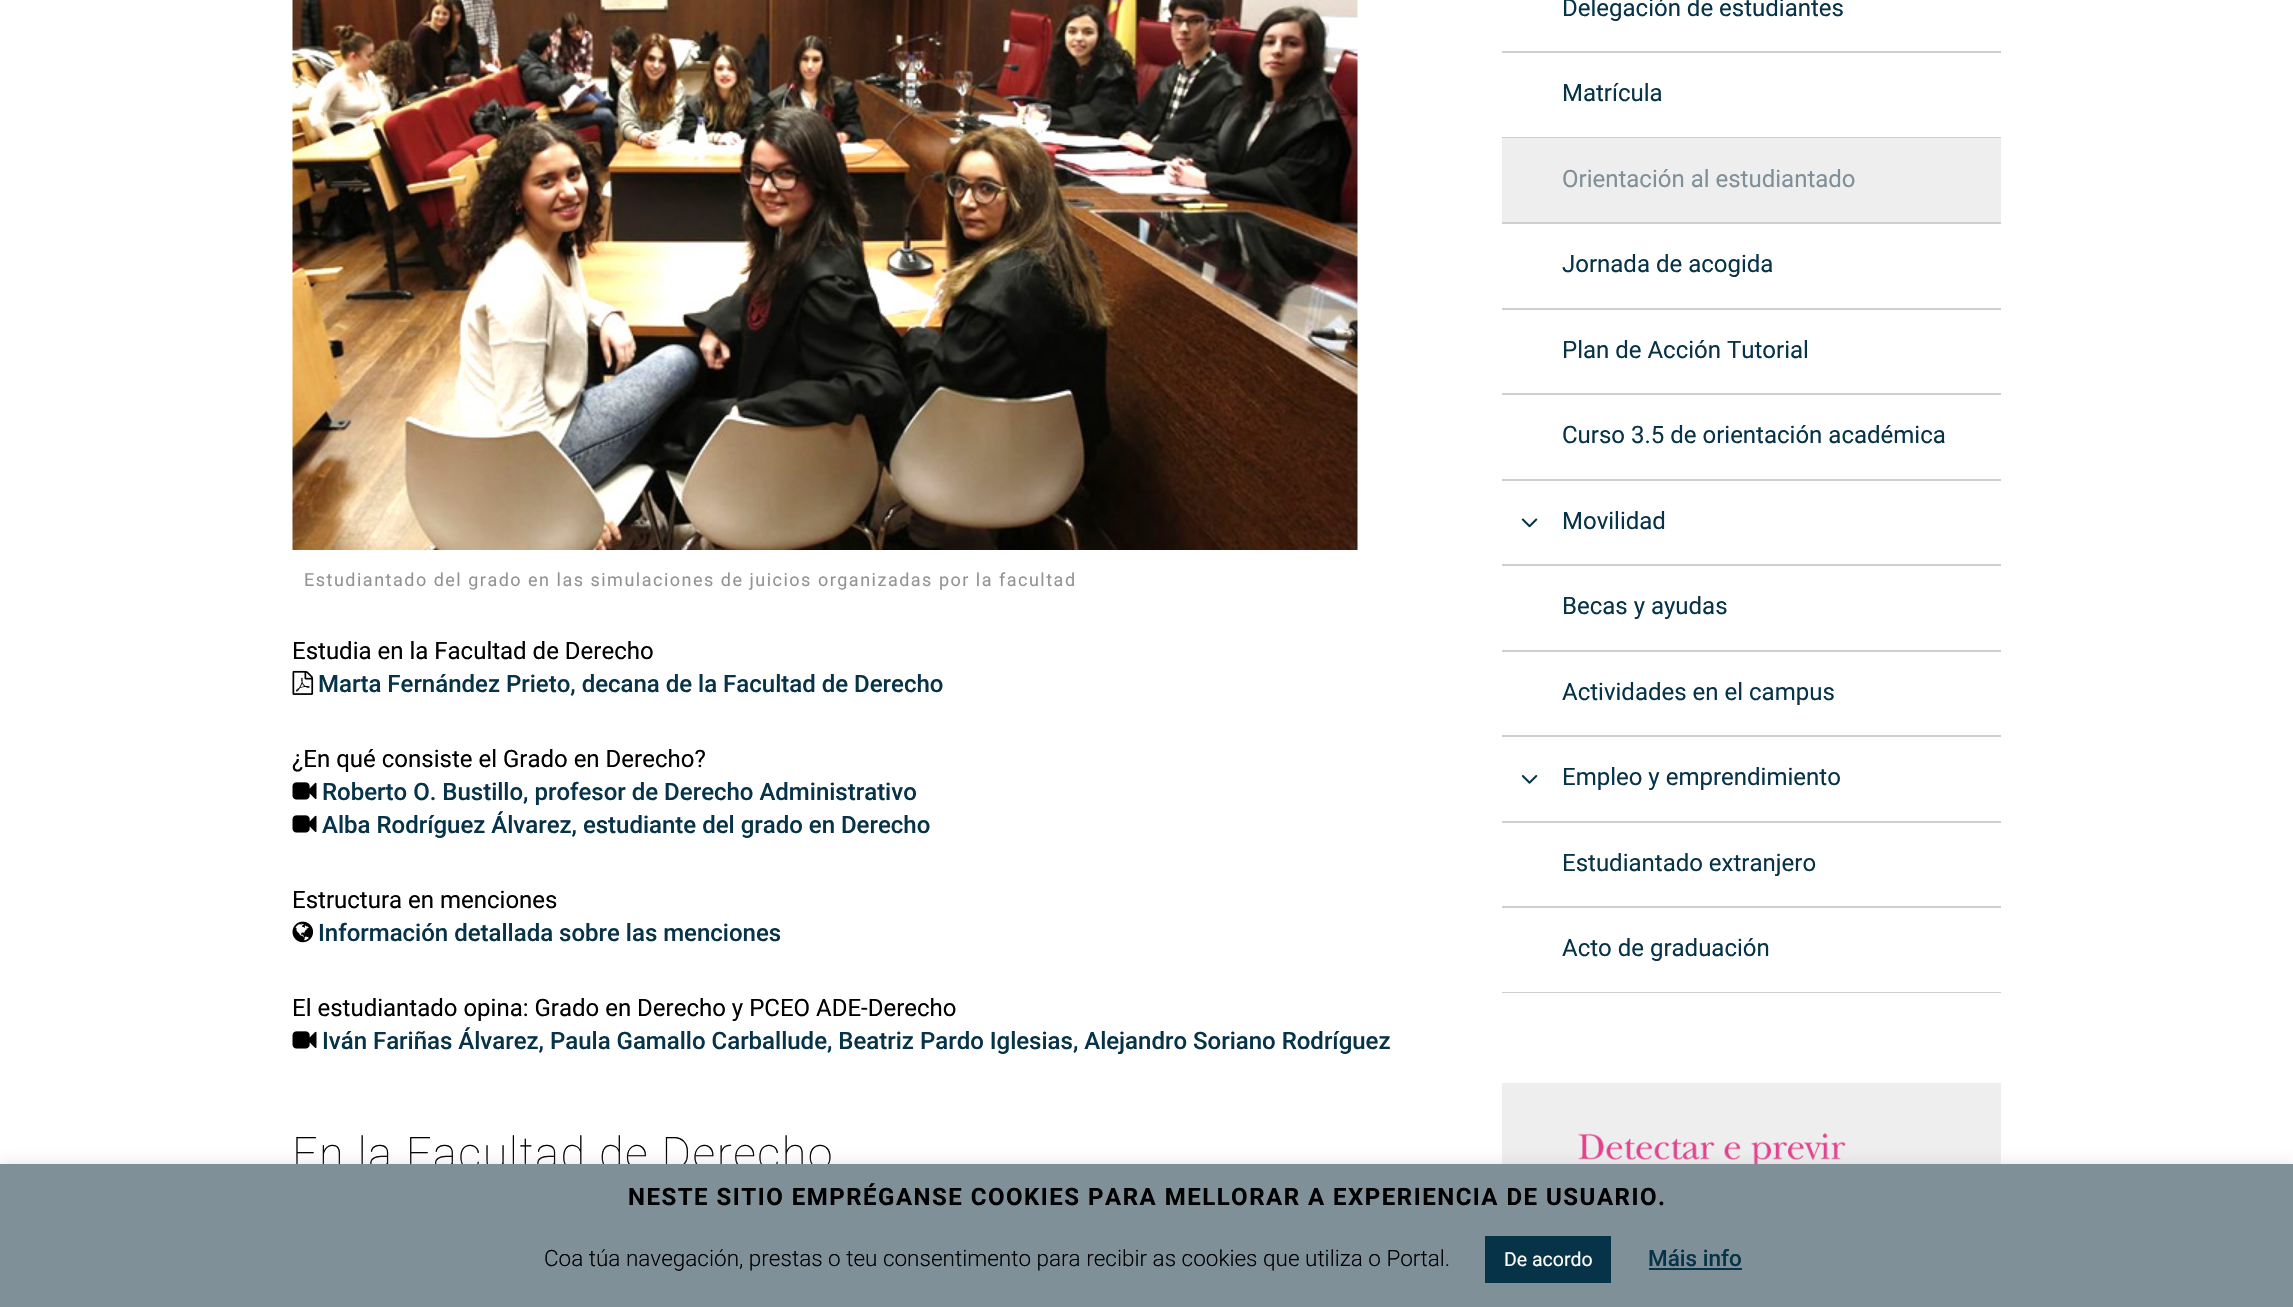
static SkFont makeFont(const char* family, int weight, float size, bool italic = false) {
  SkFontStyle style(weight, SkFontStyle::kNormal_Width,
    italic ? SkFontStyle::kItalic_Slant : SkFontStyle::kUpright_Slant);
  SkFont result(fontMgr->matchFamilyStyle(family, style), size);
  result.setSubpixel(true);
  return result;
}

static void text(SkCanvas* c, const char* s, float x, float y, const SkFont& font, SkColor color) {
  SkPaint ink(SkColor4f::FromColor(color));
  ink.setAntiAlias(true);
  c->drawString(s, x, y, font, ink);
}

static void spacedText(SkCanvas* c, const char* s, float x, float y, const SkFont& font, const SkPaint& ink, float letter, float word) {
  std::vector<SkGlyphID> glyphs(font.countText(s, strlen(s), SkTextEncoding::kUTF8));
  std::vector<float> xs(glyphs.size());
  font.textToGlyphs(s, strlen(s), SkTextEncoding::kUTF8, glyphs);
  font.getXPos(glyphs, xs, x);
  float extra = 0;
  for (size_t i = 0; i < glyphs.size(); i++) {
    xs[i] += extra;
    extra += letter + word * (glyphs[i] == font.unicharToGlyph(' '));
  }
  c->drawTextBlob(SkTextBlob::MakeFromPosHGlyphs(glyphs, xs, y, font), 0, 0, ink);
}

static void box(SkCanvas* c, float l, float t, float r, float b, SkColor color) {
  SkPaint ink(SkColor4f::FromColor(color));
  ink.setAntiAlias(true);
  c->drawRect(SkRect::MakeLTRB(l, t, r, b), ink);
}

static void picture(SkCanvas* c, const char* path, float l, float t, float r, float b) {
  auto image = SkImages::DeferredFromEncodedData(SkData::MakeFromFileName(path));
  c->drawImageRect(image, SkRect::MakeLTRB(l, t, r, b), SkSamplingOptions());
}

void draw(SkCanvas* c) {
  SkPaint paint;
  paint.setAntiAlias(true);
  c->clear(0xffffffff);
  picture(c, "img_01.png", 292, 0, 1358, 550);
  SkFont face1 = makeFont("Roboto", 400, 18);
  paint.setColor(0xff939393);
  spacedText(c, "Estudiantado del grado en las simulaciones de juicios organizadas por la facultad", 304, 586, face1, paint, 1.5f, 0);
  SkFont face2 = makeFont("Roboto", 400, 24);
  text(c, "Estudia en la Facultad de Derecho", 292, 659, face2, 0xff000000);
  picture(c, "img_02.png", 292, 670, 314, 695);
  SkFont face3 = makeFont("Roboto", 500, 24);
  text(c, "Marta Fernández Prieto, decana de la Facultad de Derecho", 318, 692, face3, 0xff073349);
  text(c, "¿En qué consiste el Grado en Derecho?", 292, 767, face2, 0xff000000);
  picture(c, "img_03.png", 292, 782, 317, 800);
  text(c, "Roberto O. Bustillo, profesor de Derecho Administrativo", 322, 800, face3, 0xff073349);
  picture(c, "img_03.png", 292, 815, 317, 833);
  text(c, "Alba Rodríguez Álvarez, estudiante del grado en Derecho", 322, 833, face3, 0xff073349);
  text(c, "Estructura en menciones", 292, 908, face2, 0xff000000);
  picture(c, "img_04.png", 292, 921, 314, 943);
  text(c, "Información detallada sobre las menciones", 318, 941, face3, 0xff073349);
  text(c, "El estudiantado opina: Grado en Derecho y PCEO ADE-Derecho", 292, 1016, face2, 0xff000000);
  picture(c, "img_03.png", 292, 1031, 317, 1049);
  text(c, "Iván Fariñas Álvarez, Paula Gamallo Carballude, Beatriz Pardo Iglesias, Alejandro Soriano Rodríguez", 322, 1049, face3, 0xff073349);
  SkFont face4 = makeFont("Roboto", 100, 45);
  paint.setColor(0xff000000);
  spacedText(c, "En la Facultad de Derecho", 292, 1169, face4, paint, 1.5f, 0);
  box(c, 1502, 992, 2001, 993, 0xffcfcfcf);
  text(c, "Delegación de estudiantes", 1562, 16, face2, 0xff073349);
  box(c, 1502, 51, 2001, 53, 0xffcfcfcf);
  text(c, "Matrícula", 1562, 101, face2, 0xff073349);
  box(c, 1502, 137, 2001, 138, 0xffcfcfcf);
  box(c, 1502, 138, 2001, 222, 0xffeeeeee);
  text(c, "Orientación al estudiantado", 1562, 187, face2, 0xff809098);
  box(c, 1502, 222, 2001, 224, 0xffcfcfcf);
  text(c, "Jornada de acogida", 1562, 272, face2, 0xff073349);
  box(c, 1502, 308, 2001, 310, 0xffcfcfcf);
  text(c, "Plan de Acción Tutorial", 1562, 358, face2, 0xff073349);
  box(c, 1502, 393, 2001, 395, 0xffcfcfcf);
  text(c, "Curso 3.5 de orientación académica", 1562, 443, face2, 0xff073349);
  box(c, 1502, 479, 2001, 481, 0xffcfcfcf);
  picture(c, "img_05.png", 1521, 518, 1538, 528);
  text(c, "Movilidad", 1562, 529, face2, 0xff073349);
  box(c, 1502, 564, 2001, 566, 0xffcfcfcf);
  text(c, "Becas y ayudas", 1562, 614, face2, 0xff073349);
  box(c, 1502, 650, 2001, 652, 0xffcfcfcf);
  text(c, "Actividades en el campus", 1562, 700, face2, 0xff073349);
  box(c, 1502, 735, 2001, 737, 0xffcfcfcf);
  picture(c, "img_06.png", 1521, 775, 1538, 784);
  text(c, "Empleo y emprendimiento", 1562, 785, face2, 0xff073349);
  box(c, 1502, 821, 2001, 823, 0xffcfcfcf);
  text(c, "Estudiantado extranjero", 1562, 871, face2, 0xff073349);
  box(c, 1502, 906, 2001, 908, 0xffcfcfcf);
  text(c, "Acto de graduación", 1562, 956, face2, 0xff073349);
  box(c, 1502, 1083, 2001, 1164, 0xffeeeeee);
  picture(c, "img_07.png", 1578, 1133, 1846, 1164);
  paint.setColor(0x4dacabab);
  paint.setMaskFilter(SkMaskFilter::MakeBlur(kNormal_SkBlurStyle, 7.5f));
  c->drawRect(SkRect::MakeLTRB(0, 1163, 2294, 1307), paint);
  paint.setMaskFilter(nullptr);
  box(c, 0, 1164, 2293, 1307, 0xff809098);
  SkFont face5 = makeFont("Roboto", 700, 24);
  paint.setColor(0xff000000);
  spacedText(c, "NESTE SITIO EMPRÉGANSE COOKIES PARA MELLORAR A EXPERIENCIA DE USUARIO.", 628, 1205, face5, paint, 1.5f, 0);
  SkFont face6 = makeFont("Roboto", 300, 22.5f);
  text(c, "Coa túa navegación, prestas o teu consentimento para recibir as cookies que utiliza o Portal.", 544, 1266, face6, 0xff000000);
  box(c, 1485, 1236, 1611, 1283, 0xff073349);
  SkFont face7 = makeFont("Roboto", 400, 19.5f);
  text(c, "De acordo", 1504, 1266, face7, 0xffffffff);
  SkFont face8 = makeFont("Roboto", 500, 22.5f);
  text(c, "Máis info", 1648, 1266, face8, 0xff073349);
  box(c, 1649, 1268, 1742, 1270, 0xff073349);
}
